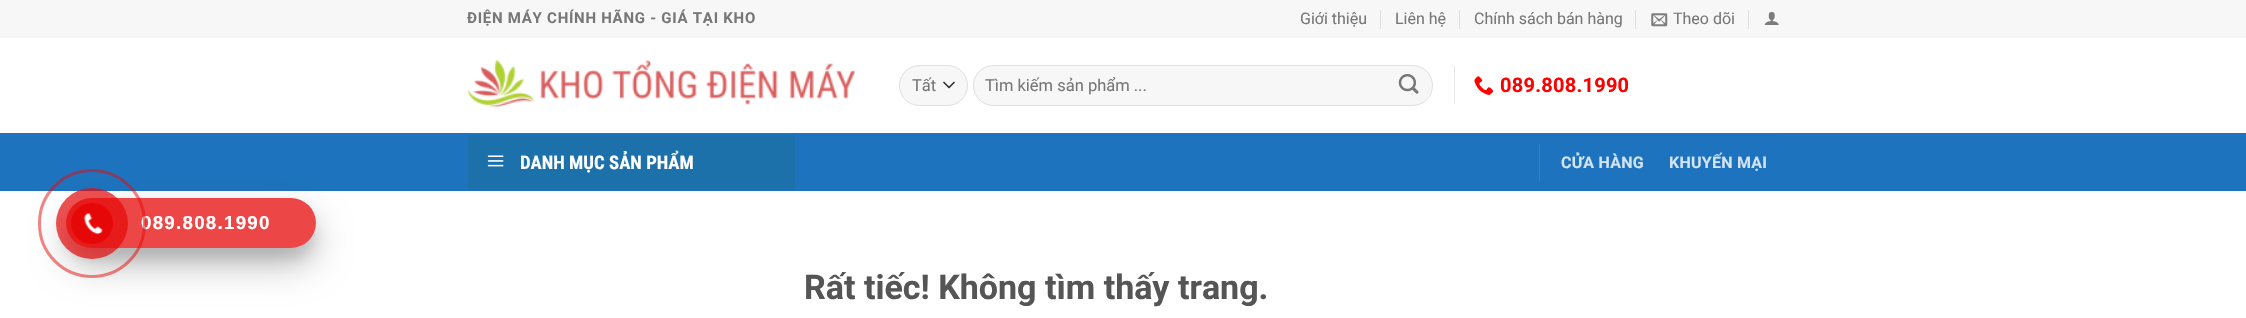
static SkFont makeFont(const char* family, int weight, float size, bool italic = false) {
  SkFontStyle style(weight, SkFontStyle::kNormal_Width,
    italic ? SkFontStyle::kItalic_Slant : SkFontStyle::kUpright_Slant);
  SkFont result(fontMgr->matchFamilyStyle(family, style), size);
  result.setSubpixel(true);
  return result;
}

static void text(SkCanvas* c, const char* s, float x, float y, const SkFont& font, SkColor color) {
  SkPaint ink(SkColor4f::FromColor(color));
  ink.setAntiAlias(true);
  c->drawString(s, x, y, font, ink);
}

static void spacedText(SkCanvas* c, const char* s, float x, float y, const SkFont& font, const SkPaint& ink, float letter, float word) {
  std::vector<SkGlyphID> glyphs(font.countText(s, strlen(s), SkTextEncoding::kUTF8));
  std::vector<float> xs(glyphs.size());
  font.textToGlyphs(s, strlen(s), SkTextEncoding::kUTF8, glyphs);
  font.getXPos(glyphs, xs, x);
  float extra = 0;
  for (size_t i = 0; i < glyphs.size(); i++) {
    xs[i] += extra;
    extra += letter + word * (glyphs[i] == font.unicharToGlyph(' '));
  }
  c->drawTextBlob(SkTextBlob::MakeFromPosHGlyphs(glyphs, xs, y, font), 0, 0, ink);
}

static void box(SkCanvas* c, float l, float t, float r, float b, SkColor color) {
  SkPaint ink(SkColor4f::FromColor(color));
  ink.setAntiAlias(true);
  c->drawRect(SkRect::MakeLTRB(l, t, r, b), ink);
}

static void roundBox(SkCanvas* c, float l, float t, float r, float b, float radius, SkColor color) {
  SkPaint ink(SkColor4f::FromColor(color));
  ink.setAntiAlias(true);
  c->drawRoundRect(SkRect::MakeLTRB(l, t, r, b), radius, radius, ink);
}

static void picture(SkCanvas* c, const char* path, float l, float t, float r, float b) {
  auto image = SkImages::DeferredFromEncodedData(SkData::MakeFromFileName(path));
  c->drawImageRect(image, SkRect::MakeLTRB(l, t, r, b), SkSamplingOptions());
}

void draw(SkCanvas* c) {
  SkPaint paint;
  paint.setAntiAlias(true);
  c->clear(0xffffffff);
  c->save();
  c->clipPath(SkPathBuilder(SkPathFillType::kEvenOdd).moveTo(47, 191).lineTo(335, 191).lineTo(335, 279).lineTo(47, 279).close().moveTo(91, 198).lineTo(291, 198).cubicTo(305, 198, 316, 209, 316, 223).cubicTo(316, 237, 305, 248, 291, 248).lineTo(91, 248).cubicTo(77, 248, 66, 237, 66, 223).cubicTo(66, 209, 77, 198, 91, 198).close().detach(), true);
  paint.setColor(0x1a000000);
  paint.setMaskFilter(SkMaskFilter::MakeBlur(kNormal_SkBlurStyle, 6));
  c->drawRoundRect(SkRect::MakeLTRB(66, 210, 316, 260), 25, 25, paint);
  paint.setMaskFilter(nullptr);
  c->restore();
  box(c, 0, 133, 2246, 191, 0xff1e73be);
  c->save();
  c->clipPath(SkPathBuilder(SkPathFillType::kEvenOdd).moveTo(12, 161).lineTo(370, 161).lineTo(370, 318).lineTo(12, 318).close().moveTo(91, 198).lineTo(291, 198).cubicTo(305, 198, 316, 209, 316, 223).cubicTo(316, 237, 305, 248, 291, 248).lineTo(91, 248).cubicTo(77, 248, 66, 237, 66, 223).cubicTo(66, 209, 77, 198, 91, 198).close().detach(), true);
  paint.setColor(0x40000000);
  paint.setMaskFilter(SkMaskFilter::MakeBlur(kNormal_SkBlurStyle, 17.5f));
  c->drawRoundRect(SkRect::MakeLTRB(66, 215, 316, 265), 25, 25, paint);
  paint.setMaskFilter(nullptr);
  c->restore();
  roundBox(c, 66, 198, 316, 248, 25, 0xbfe60808);
  SkFont face1 = makeFont("Liberation Sans", 700, 18.75f);
  paint.setColor(0xffffffff);
  spacedText(c, "089.808.1990", 141, 229, face1, paint, 1.25f, 0);
  paint.setStyle(SkPaint::kStroke_Style);
  paint.setStrokeWidth(3);
  paint.setColor(0x80e60808);
  c->drawRoundRect(SkRect::MakeLTRB(39.5f, 170.5f, 144.5f, 276.5f), 52.5f, 52.5f, paint);
  roundBox(c, 56, 188, 128, 259, 35.5f, 0xb3e60808);
  roundBox(c, 71, 203, 113, 244, 20.5f, 0xffe60808);
  picture(c, "img_01.png", 83, 213, 103, 235);
  box(c, 0, 0, 2246, 38, 0xfff7f7f7);
  SkFont face2 = makeFont("Roboto", 700, 15);
  paint.setStyle(SkPaint::kFill_Style);
  paint.setColor(0xff777777);
  spacedText(c, "ĐIỆN MÁY CHÍNH HÃNG - GIÁ TẠI KHO", 467, 23, face2, paint, 0.75f, 0);
  SkFont face3 = makeFont("Roboto", 400, 16);
  text(c, "Giới thiệu", 1300, 24, face3, 0xff777777);
  box(c, 1380, 10, 1381, 29, 0xffdedede);
  text(c, "Liên hệ", 1395, 24, face3, 0xff777777);
  box(c, 1459, 10, 1460, 29, 0xffdedede);
  text(c, "Chính sách bán hàng", 1474, 24, face3, 0xff777777);
  box(c, 1635, 10, 1636, 29, 0xffdedede);
  picture(c, "img_02.png", 1651, 13, 1668, 27);
  text(c, "Theo dõi", 1673, 24, face3, 0xff777777);
  box(c, 1748, 10, 1749, 29, 0xffdedede);
  picture(c, "img_03.png", 1764, 12, 1779, 25);
  picture(c, "img_04.png", 467, 59, 855, 108);
  roundBox(c, 899, 65, 968, 106, 20.5f, 0xfff7f7f7);
  paint.setStyle(SkPaint::kStroke_Style);
  paint.setStrokeWidth(1.7f);
  paint.setStrokeCap(SkPaint::kRound_Cap);
  paint.setStrokeJoin(SkPaint::kRound_Join);
  paint.setColor(0xff333333);
  c->drawPath(SkPathBuilder().moveTo(944, 82.5f).lineTo(949, 87.5f).lineTo(954, 82.5f).detach(), paint);
  paint.setStrokeWidth(1);
  paint.setStrokeCap(SkPaint::kButt_Cap);
  paint.setStrokeJoin(SkPaint::kMiter_Join);
  paint.setColor(0x17000000);
  c->drawRoundRect(SkRect::MakeLTRB(899.5f, 65.5f, 967.5f, 105.5f), 20, 20, paint);
  SkFont face4 = makeFont("Roboto", 400, 16.5f);
  text(c, "Tất", 912, 91, face4, 0xff777777);
  roundBox(c, 973, 65, 1433, 106, 20.5f, 0xfff7f7f7);
  c->drawRoundRect(SkRect::MakeLTRB(973.5f, 65.5f, 1432.5f, 105.5f), 20, 20, paint);
  text(c, "Tìm kiếm sản phẩm ...", 985, 91, face4, 0xff777777);
  picture(c, "img_05.png", 1398, 74, 1419, 94);
  box(c, 1454, 66, 1455, 104, 0xffe6e6e6);
  picture(c, "img_06.png", 1474, 76, 1494, 95);
  SkFont face5 = makeFont("Roboto", 700, 20);
  paint.setStyle(SkPaint::kFill_Style);
  paint.setColor(0xffff0000);
  spacedText(c, "089.808.1990", 1500, 92, face5, paint, 0.25f, 0);
  box(c, 468, 133, 1780, 134, 0xff2773b7);
  box(c, 468, 135, 795, 190, 0xff1d71ab);
  picture(c, "img_07.png", 487, 155, 504, 167);
  SkFont face6 = makeFont("Roboto Condensed", 700, 18.75f);
  text(c, "DANH MỤC SẢN PHẨM", 520, 169, face6, 0xffffffff);
  box(c, 1539, 144, 1540, 181, 0xff3581c5);
  SkFont face7 = makeFont("Roboto", 700, 16);
  paint.setColor(0xffd2e3f2);
  spacedText(c, "CỬA HÀNG", 1561, 168, face7, paint, 0.25f, 0);
  spacedText(c, "KHUYẾN MẠI", 1669, 168, face7, paint, 0.25f, 0);
  SkFont face8 = makeFont("Roboto", 700, 34);
  text(c, "Rất tiếc! Không tìm thấy trang.", 804, 299, face8, 0xff555555);
}
